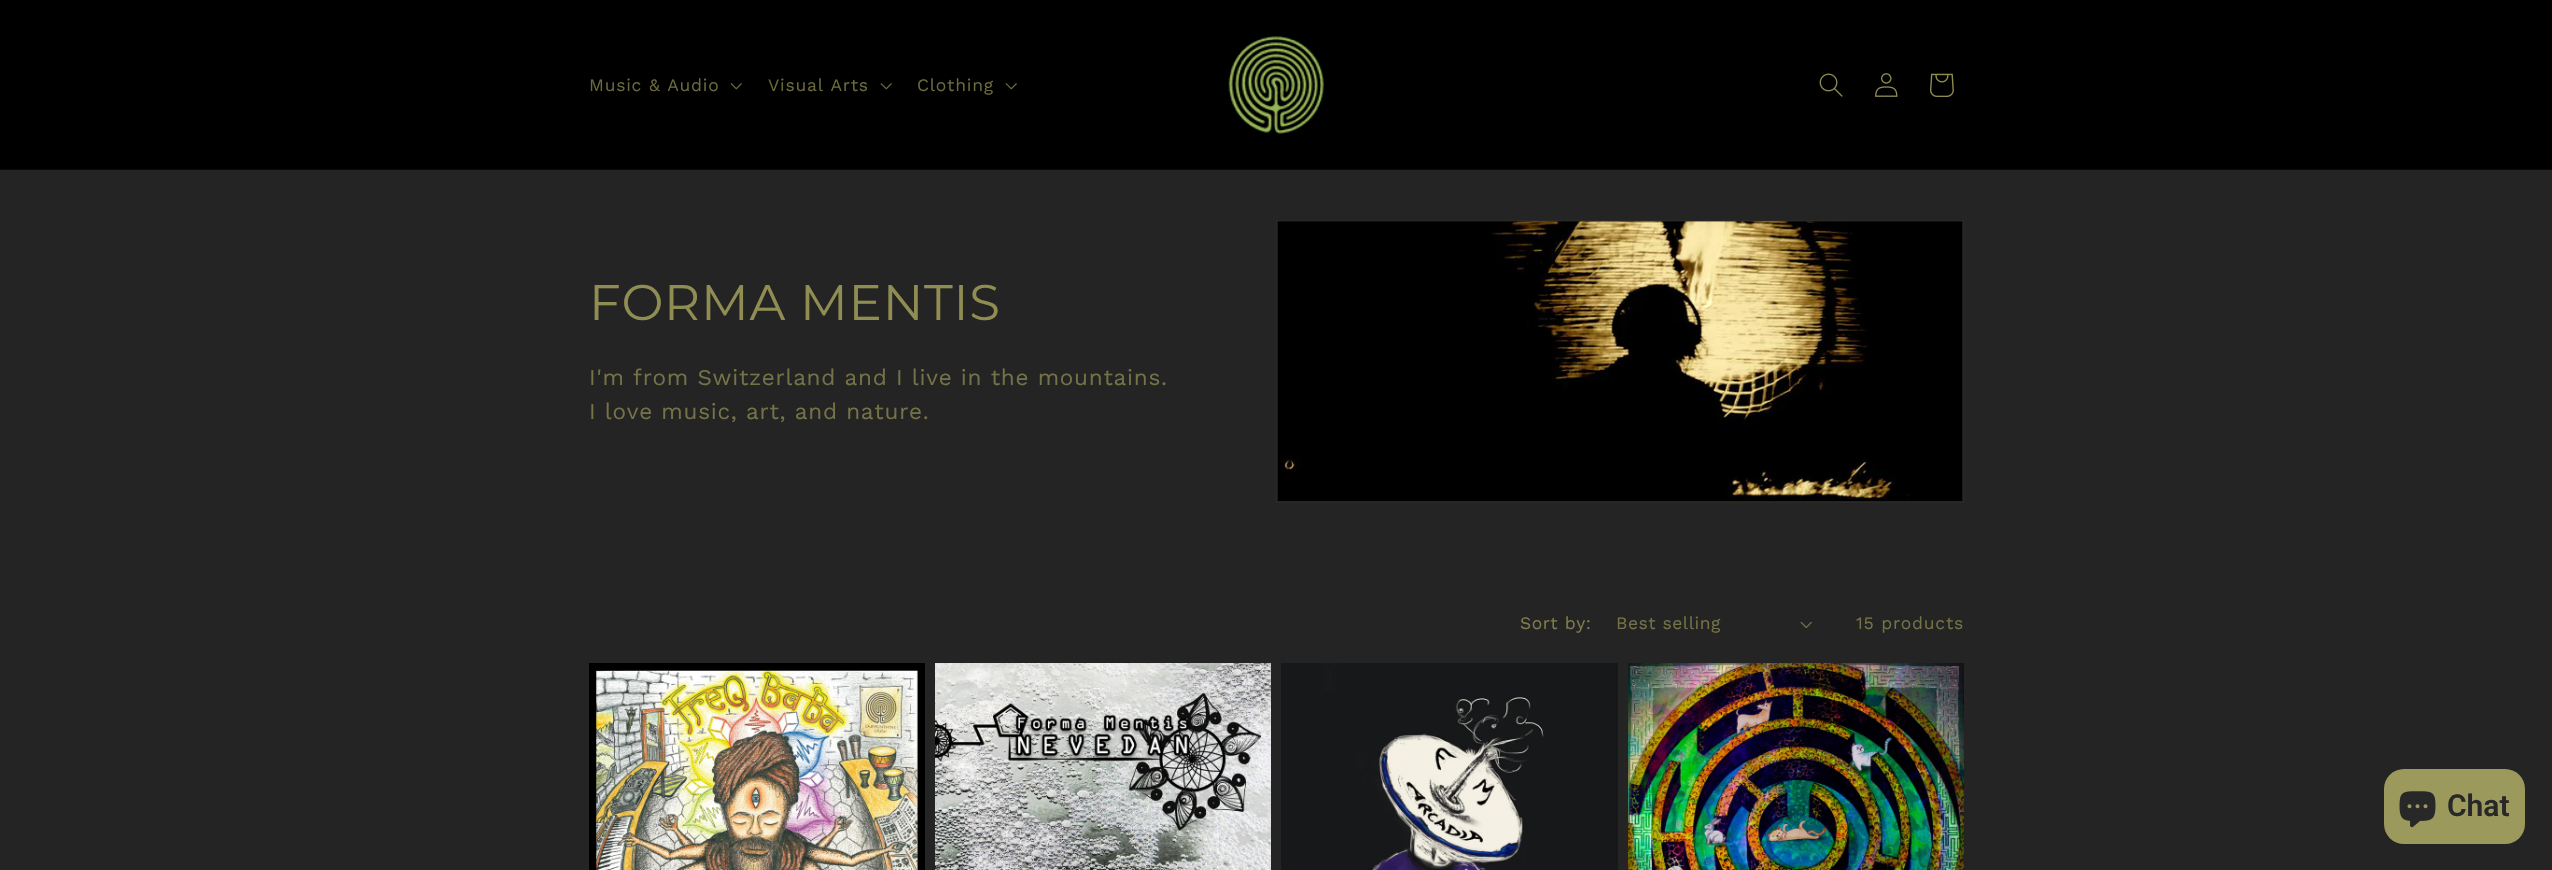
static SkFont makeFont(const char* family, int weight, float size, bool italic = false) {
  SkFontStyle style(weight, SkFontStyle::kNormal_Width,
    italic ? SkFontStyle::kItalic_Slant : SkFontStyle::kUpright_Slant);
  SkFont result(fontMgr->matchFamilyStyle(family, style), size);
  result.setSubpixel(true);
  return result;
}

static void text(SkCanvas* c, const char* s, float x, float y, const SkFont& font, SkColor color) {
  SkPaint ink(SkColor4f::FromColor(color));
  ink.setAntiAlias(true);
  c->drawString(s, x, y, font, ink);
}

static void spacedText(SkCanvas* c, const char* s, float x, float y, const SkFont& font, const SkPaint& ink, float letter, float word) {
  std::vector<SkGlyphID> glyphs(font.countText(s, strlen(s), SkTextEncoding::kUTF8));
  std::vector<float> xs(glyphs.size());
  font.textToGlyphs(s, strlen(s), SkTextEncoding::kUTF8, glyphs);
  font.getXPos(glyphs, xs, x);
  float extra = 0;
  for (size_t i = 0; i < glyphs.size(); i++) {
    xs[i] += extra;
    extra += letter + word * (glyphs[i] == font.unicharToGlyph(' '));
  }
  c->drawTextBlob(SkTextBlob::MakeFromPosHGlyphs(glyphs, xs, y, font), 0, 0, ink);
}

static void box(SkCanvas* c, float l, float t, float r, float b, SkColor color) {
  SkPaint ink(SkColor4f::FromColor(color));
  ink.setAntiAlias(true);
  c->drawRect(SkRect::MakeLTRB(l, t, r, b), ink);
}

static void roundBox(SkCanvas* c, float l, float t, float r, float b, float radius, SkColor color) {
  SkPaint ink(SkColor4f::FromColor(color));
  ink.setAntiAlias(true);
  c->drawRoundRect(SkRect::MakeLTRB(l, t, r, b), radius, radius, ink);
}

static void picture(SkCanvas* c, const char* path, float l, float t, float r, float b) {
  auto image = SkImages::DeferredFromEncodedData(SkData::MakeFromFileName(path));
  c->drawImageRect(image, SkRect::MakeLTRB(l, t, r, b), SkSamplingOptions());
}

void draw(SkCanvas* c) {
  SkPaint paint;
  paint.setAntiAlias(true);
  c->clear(0xff242424);
  box(c, 0, 0, 2552, 169, 0xff000000);
  box(c, 0, 169, 2552, 170, 0xff0b0b07);
  SkFont face1 = makeFont("Work Sans", 400, 17.5f);
  paint.setColor(0xff6b6a3e);
  spacedText(c, "Music & Audio", 589, 91, face1, paint, 0.75f, 0);
  picture(c, "img_01.png", 730, 83, 742, 90);
  spacedText(c, "Visual Arts", 768, 91, face1, paint, 0.75f, 0);
  picture(c, "img_01.png", 880, 83, 892, 90);
  spacedText(c, "Clothing", 917, 91, face1, paint, 0.75f, 0);
  picture(c, "img_01.png", 1005, 83, 1017, 90);
  picture(c, "img_02.png", 1228, 36, 1324, 134);
  picture(c, "img_03.png", 1819, 73, 1843, 97);
  picture(c, "img_04.png", 1875, 73, 1898, 97);
  picture(c, "img_05.png", 1930, 73, 1954, 97);
  SkFont face2 = makeFont("Montserrat", 400, 50);
  paint.setColor(0xff8f8d52);
  spacedText(c, "FORMA MENTIS", 589, 320, face2, paint, 0.75f, 0);
  SkFont face3 = makeFont("Work Sans", 400, 22.5f);
  paint.setColor(0xff747347);
  spacedText(c, "I'm from Switzerland and I live in the mountains.", 589, 385, face3, paint, 0.75f, 0);
  spacedText(c, "I love music, art, and nature.", 589, 419, face3, paint, 0.75f, 0);
  paint.setStyle(SkPaint::kStroke_Style);
  paint.setStrokeWidth(1);
  paint.setColor(0xff292926);
  c->drawRect(SkRect::MakeLTRB(1276.5f, 220.5f, 1963.5f, 502.5f), paint);
  picture(c, "img_06.png", 1277, 221, 1963, 501);
  paint.setStyle(SkPaint::kFill_Style);
  paint.setColor(0xff7f7d4b);
  spacedText(c, "Sort by:", 1520, 629, face1, paint, 0.5f, 0);
  paint.setColor(0xff747347);
  spacedText(c, "Best selling", 1616, 629, face1, paint, 0.5f, 0);
  picture(c, "img_07.png", 1800, 622, 1812, 628);
  spacedText(c, "15 products", 1856, 629, face1, paint, 0.75f, 0);
  picture(c, "img_08.png", 589, 663, 925, 870);
  picture(c, "img_09.png", 935, 663, 1271, 870);
  picture(c, "img_10.png", 1281, 663, 1618, 870);
  picture(c, "img_11.png", 1628, 663, 1964, 870);
  roundBox(c, 2384, 769, 2525, 844, 20, 0xff9b995c);
  picture(c, "img_12.png", 2399, 791, 2436, 828);
  SkFont face4 = makeFont("Roboto", 600, 30);
  text(c, "Chat", 2447, 816, face4, 0xff282828);
}
